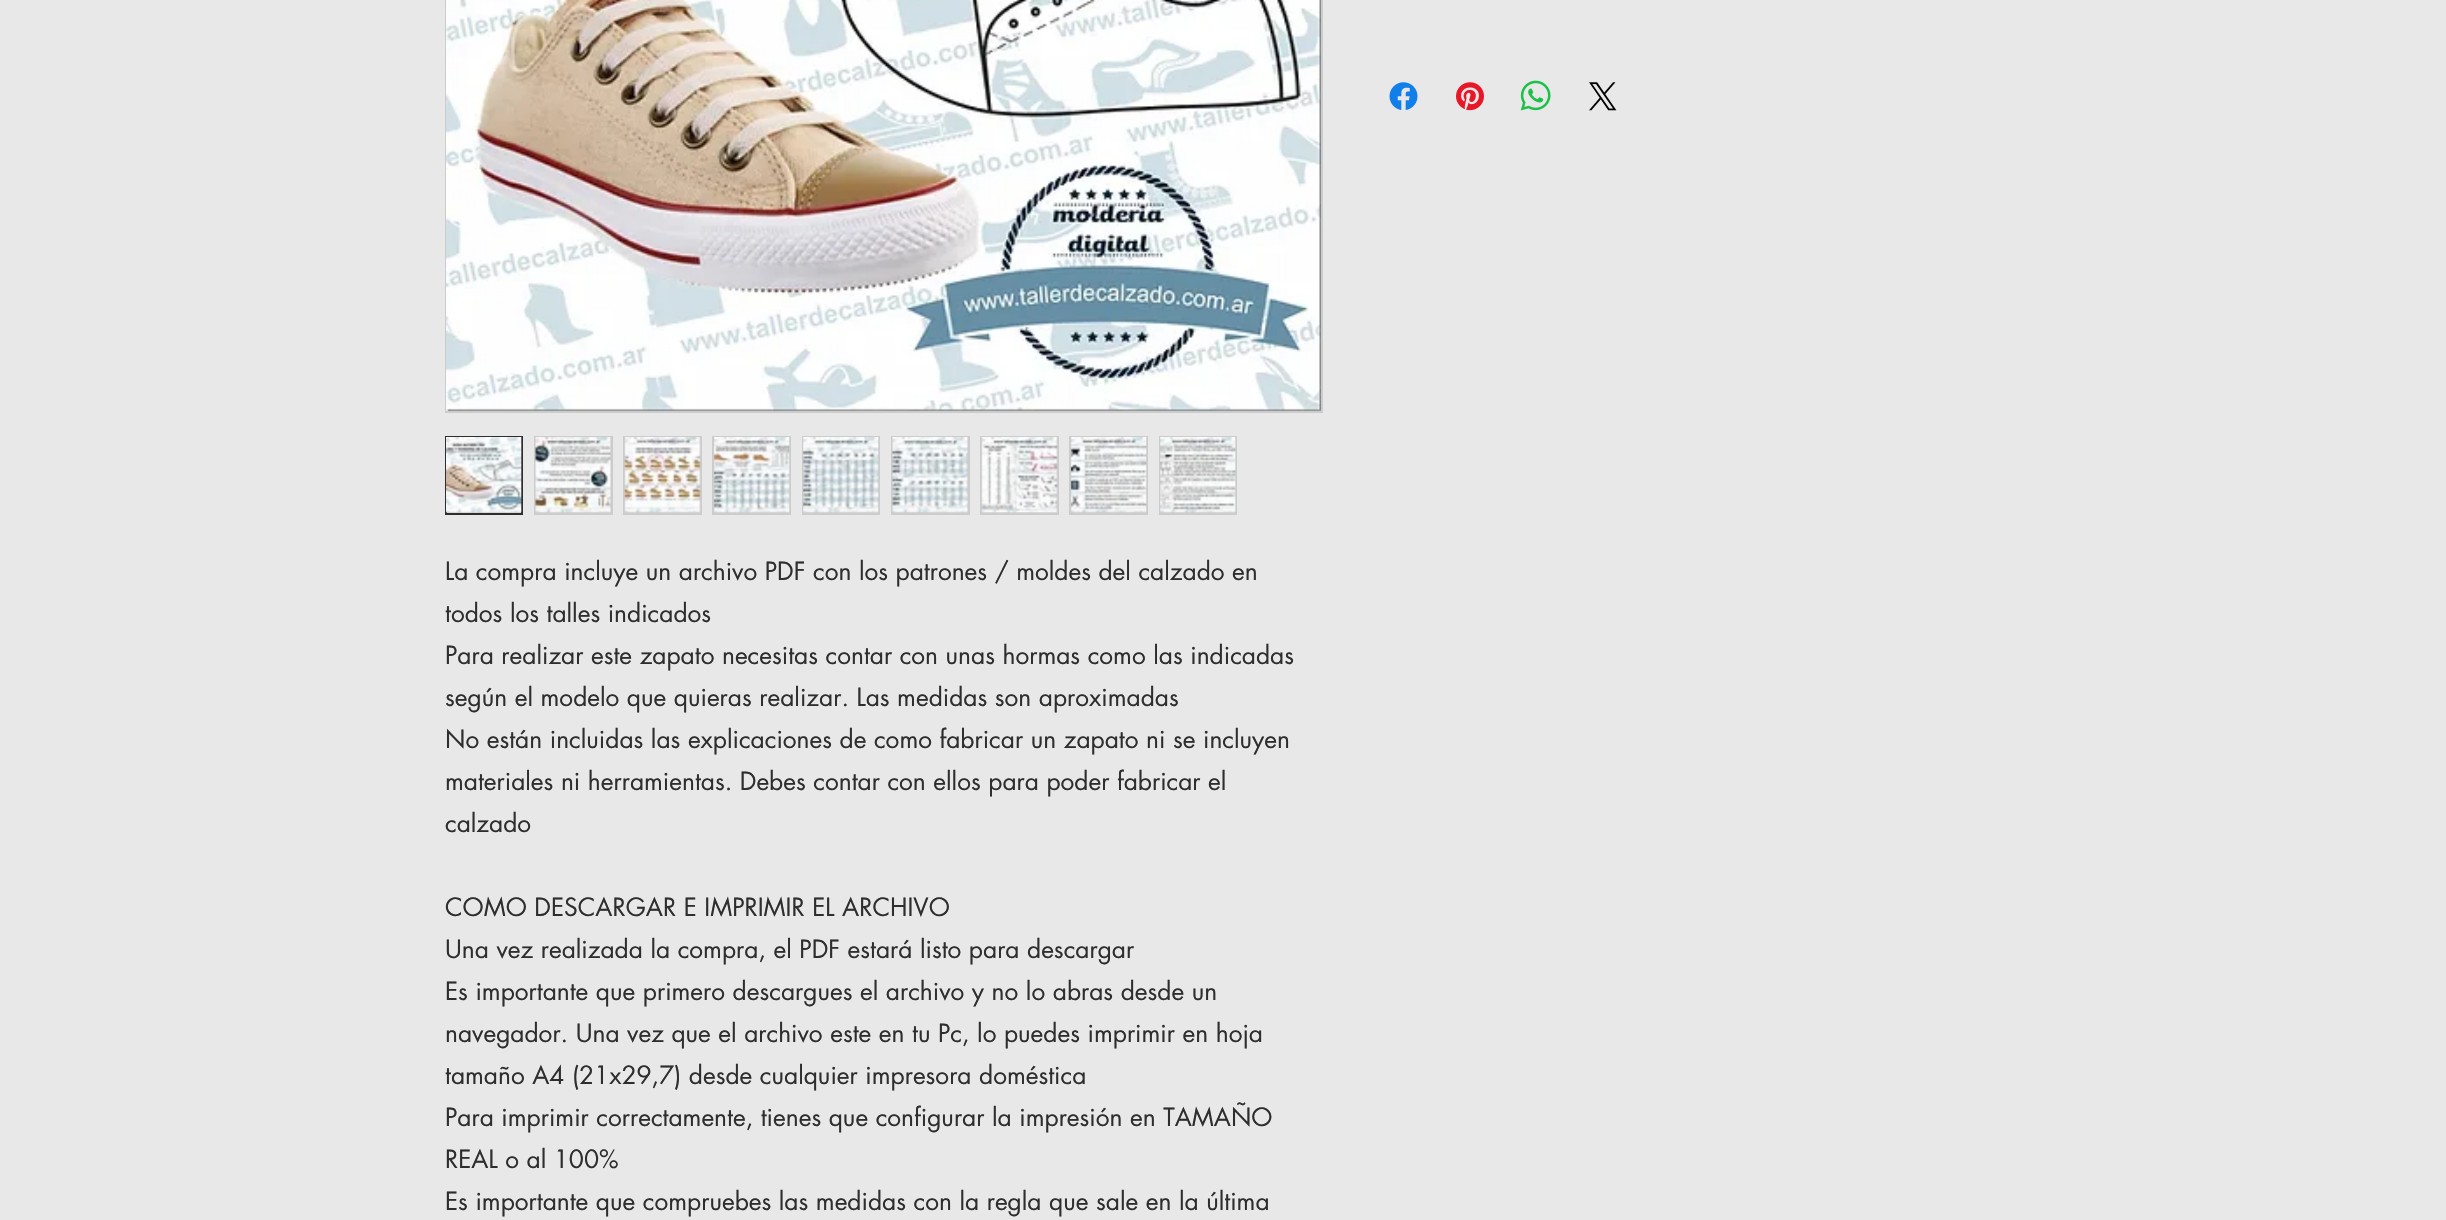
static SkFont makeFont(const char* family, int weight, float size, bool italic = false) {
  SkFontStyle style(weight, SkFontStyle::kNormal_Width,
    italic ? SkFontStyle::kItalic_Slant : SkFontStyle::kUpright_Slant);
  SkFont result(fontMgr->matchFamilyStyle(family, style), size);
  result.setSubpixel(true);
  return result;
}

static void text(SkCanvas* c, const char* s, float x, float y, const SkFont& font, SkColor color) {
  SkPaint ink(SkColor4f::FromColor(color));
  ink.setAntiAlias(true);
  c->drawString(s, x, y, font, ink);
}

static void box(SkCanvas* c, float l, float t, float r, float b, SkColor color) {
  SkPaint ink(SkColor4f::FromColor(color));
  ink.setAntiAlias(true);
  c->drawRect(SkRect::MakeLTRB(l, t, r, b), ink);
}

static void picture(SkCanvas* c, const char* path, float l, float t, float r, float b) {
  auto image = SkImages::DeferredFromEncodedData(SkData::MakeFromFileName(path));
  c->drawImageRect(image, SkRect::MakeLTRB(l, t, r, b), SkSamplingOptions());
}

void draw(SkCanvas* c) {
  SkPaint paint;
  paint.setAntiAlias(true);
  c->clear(0xffe8e8e8);
  picture(c, "img_01.png", 1389, 82, 1418, 110);
  picture(c, "img_02.png", 1456, 82, 1484, 111);
  picture(c, "img_03.png", 1520, 80, 1551, 111);
  picture(c, "img_04.png", 1589, 82, 1617, 111);
  paint.setStyle(SkPaint::kStroke_Style);
  paint.setStrokeWidth(2);
  paint.setColor(0xffcccccc);
  c->drawRect(SkRect::MakeLTRB(446, -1, 1322, 412), paint);
  picture(c, "img_05.png", 446, 0, 1321, 411);
  box(c, 447, 512, 521, 513, 0xffcccccc);
  paint.setColor(0xff2f2e2e);
  c->drawRect(SkRect::MakeLTRB(446, 437, 522, 514), paint);
  picture(c, "img_06.png", 446, 437, 522, 513);
  box(c, 534, 436, 613, 515, 0xffcccccc);
  picture(c, "img_07.png", 535, 437, 611, 513);
  box(c, 623, 436, 702, 515, 0xffcccccc);
  picture(c, "img_08.png", 624, 437, 701, 513);
  box(c, 712, 436, 791, 515, 0xffcccccc);
  picture(c, "img_09.png", 713, 437, 790, 513);
  box(c, 802, 436, 880, 515, 0xffcccccc);
  picture(c, "img_10.png", 803, 437, 879, 513);
  box(c, 891, 436, 970, 515, 0xffcccccc);
  picture(c, "img_11.png", 892, 437, 968, 513);
  box(c, 980, 436, 1059, 515, 0xffcccccc);
  picture(c, "img_12.png", 981, 437, 1058, 513);
  box(c, 1069, 436, 1148, 515, 0xffcccccc);
  picture(c, "img_13.png", 1070, 437, 1147, 513);
  box(c, 1159, 436, 1237, 515, 0xffcccccc);
  picture(c, "img_14.png", 1160, 437, 1236, 513);
  SkFont face1 = makeFont("futura", 400, 24.5f);
  text(c, "La compra incluye un archivo PDF con los patrones / moldes del calzado en", 445, 580, face1, 0xff2f2e2e);
  text(c, "todos los talles indicados", 445, 622, face1, 0xff2f2e2e);
  text(c, "Para realizar este zapato necesitas contar con unas hormas como las indicadas", 445, 664, face1, 0xff2f2e2e);
  text(c, "según el modelo que quieras realizar. Las medidas son aproximadas", 445, 706, face1, 0xff2f2e2e);
  text(c, "No están incluidas las explicaciones de como fabricar un zapato ni se incluyen", 445, 748, face1, 0xff2f2e2e);
  text(c, "materiales ni herramientas. Debes contar con ellos para poder fabricar el", 445, 790, face1, 0xff2f2e2e);
  text(c, "calzado", 445, 832, face1, 0xff2f2e2e);
  text(c, "COMO DESCARGAR E IMPRIMIR EL ARCHIVO", 445, 916, face1, 0xff2f2e2e);
  text(c, "Una vez realizada la compra, el PDF estará listo para descargar", 445, 958, face1, 0xff2f2e2e);
  text(c, "Es importante que primero descargues el archivo y no lo abras desde un", 445, 1000, face1, 0xff2f2e2e);
  text(c, "navegador. Una vez que el archivo este en tu Pc, lo puedes imprimir en hoja", 445, 1042, face1, 0xff2f2e2e);
  text(c, "tamaño A4 (21x29,7) desde cualquier impresora doméstica", 445, 1084, face1, 0xff2f2e2e);
  text(c, "Para imprimir correctamente, tienes que configurar la impresión en TAMAÑO", 445, 1126, face1, 0xff2f2e2e);
  text(c, "REAL o al 100%", 445, 1168, face1, 0xff2f2e2e);
  text(c, "Es importante que compruebes las medidas con la regla que sale en la última", 445, 1210, face1, 0xff2f2e2e);
}
